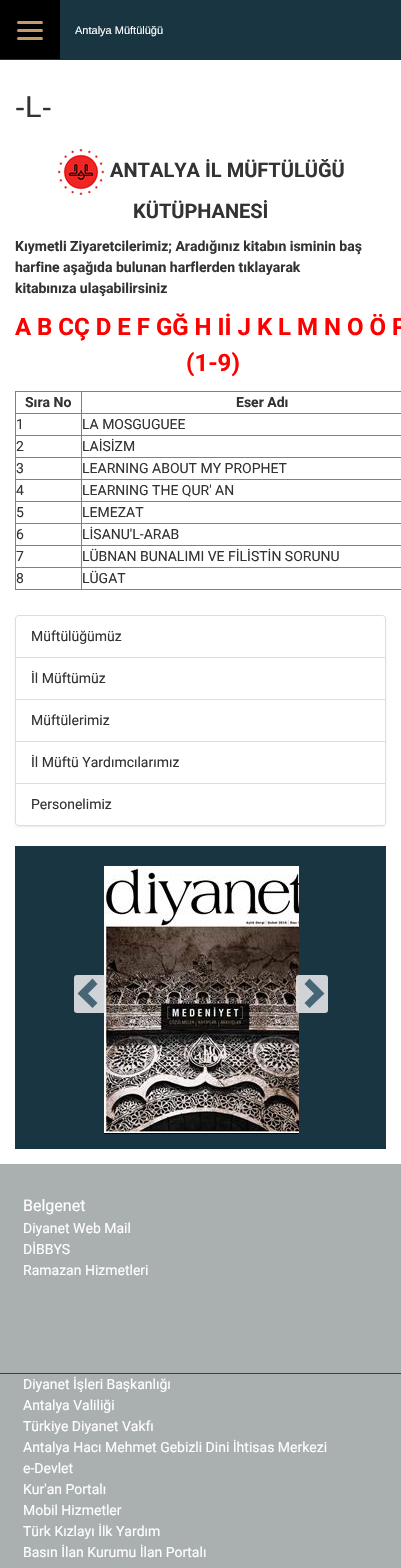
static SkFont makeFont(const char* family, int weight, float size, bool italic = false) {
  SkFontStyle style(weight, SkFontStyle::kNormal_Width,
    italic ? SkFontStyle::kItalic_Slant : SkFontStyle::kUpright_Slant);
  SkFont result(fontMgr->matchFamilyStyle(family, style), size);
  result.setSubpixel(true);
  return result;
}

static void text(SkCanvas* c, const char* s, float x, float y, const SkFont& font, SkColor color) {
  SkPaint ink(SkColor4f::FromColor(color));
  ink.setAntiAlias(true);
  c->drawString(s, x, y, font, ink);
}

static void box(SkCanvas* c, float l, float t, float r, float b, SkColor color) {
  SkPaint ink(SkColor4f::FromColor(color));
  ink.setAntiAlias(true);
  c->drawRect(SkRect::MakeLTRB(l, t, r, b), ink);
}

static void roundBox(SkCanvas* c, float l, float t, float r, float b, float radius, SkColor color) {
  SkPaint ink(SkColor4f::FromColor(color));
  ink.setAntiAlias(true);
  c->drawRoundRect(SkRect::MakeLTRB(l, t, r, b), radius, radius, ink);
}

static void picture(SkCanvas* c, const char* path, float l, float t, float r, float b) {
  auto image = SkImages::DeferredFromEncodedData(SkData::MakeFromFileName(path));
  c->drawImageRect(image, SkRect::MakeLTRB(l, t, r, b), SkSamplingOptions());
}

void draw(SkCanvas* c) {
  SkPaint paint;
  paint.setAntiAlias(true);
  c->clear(0xffffffff);
  box(c, 0, 0, 401, 60, 0xff193541);
  box(c, 0, 0, 60, 59, 0xff000000);
  roundBox(c, 17, 21, 43, 24, 1.5f, 0xffc59b6a);
  roundBox(c, 17, 29, 43, 32, 1.5f, 0xffc59b6a);
  roundBox(c, 17, 37, 43, 40, 1.5f, 0xffc59b6a);
  SkFont face1 = makeFont("Liberation Sans", 400, 11);
  text(c, "Antalya Müftülüğü", 75, 34, face1, 0xffffffff);
  SkFont face2 = makeFont("Liberation Sans", 400, 30);
  text(c, "-L-", 15, 117, face2, 0xff333333);
  picture(c, "img_01.png", 57, 148, 105, 196);
  SkFont face3 = makeFont("Roboto", 700, 20);
  text(c, "ANTALYA İL MÜFTÜLÜĞÜ", 110, 177, face3, 0xff333333);
  text(c, "KÜTÜPHANESİ", 133, 218, face3, 0xff333333);
  SkFont face4 = makeFont("Roboto", 700, 14);
  text(c, "Kıymetli Ziyaretcilerimiz; Aradığınız kitabın isminin baş", 15, 251, face4, 0xff333333);
  text(c, "harfine aşağıda bulunan harflerden tıklayarak", 15, 272, face4, 0xff333333);
  text(c, "kitabınıza ulaşabilirsiniz", 15, 293, face4, 0xff333333);
  SkFont face5 = makeFont("Roboto", 700, 24);
  text(c, "A B CÇ D E F GĞ H Iİ J K L M N O Ö P", 15, 335, face5, 0xffff0000);
  text(c, "(1-9)", 186, 371, face5, 0xffff0000);
  box(c, 81, 391, 401, 392, 0xff808080);
  box(c, 81, 413, 401, 414, 0xff808080);
  box(c, 81, 435, 401, 436, 0xff808080);
  box(c, 81, 457, 401, 458, 0xff808080);
  box(c, 81, 479, 401, 480, 0xff808080);
  box(c, 81, 501, 401, 502, 0xff808080);
  box(c, 81, 523, 401, 524, 0xff808080);
  box(c, 81, 545, 401, 546, 0xff808080);
  box(c, 81, 567, 401, 568, 0xff808080);
  box(c, 81, 589, 401, 590, 0xff808080);
  box(c, 81, 567, 82, 590, 0xff808080);
  box(c, 15, 567, 82, 568, 0xff808080);
  box(c, 81, 545, 82, 568, 0xff808080);
  box(c, 15, 545, 82, 546, 0xff808080);
  box(c, 81, 523, 82, 546, 0xff808080);
  box(c, 15, 523, 82, 524, 0xff808080);
  box(c, 81, 501, 82, 524, 0xff808080);
  box(c, 15, 501, 82, 502, 0xff808080);
  box(c, 81, 479, 82, 502, 0xff808080);
  box(c, 15, 479, 82, 480, 0xff808080);
  box(c, 81, 457, 82, 480, 0xff808080);
  box(c, 15, 457, 82, 458, 0xff808080);
  box(c, 81, 435, 82, 458, 0xff808080);
  box(c, 15, 435, 82, 436, 0xff808080);
  box(c, 81, 413, 82, 436, 0xff808080);
  box(c, 15, 413, 82, 414, 0xff808080);
  box(c, 81, 391, 82, 414, 0xff808080);
  box(c, 15, 391, 82, 392, 0xff808080);
  box(c, 15, 589, 82, 590, 0xff808080);
  box(c, 15, 567, 16, 590, 0xff808080);
  box(c, 15, 545, 16, 568, 0xff808080);
  box(c, 15, 523, 16, 546, 0xff808080);
  box(c, 15, 501, 16, 524, 0xff808080);
  box(c, 15, 479, 16, 502, 0xff808080);
  box(c, 15, 457, 16, 480, 0xff808080);
  box(c, 15, 435, 16, 458, 0xff808080);
  box(c, 15, 413, 16, 436, 0xff808080);
  box(c, 15, 391, 16, 414, 0xff808080);
  text(c, "Sıra No", 25, 407, face4, 0xff333333);
  text(c, "Eser Adı", 236, 407, face4, 0xff333333);
  SkFont face6 = makeFont("Roboto", 400, 14);
  text(c, "1", 16, 429, face6, 0xff333333);
  text(c, "LA MOSGUGUEE", 82, 429, face6, 0xff333333);
  text(c, "2", 16, 451, face6, 0xff333333);
  text(c, "LAİSİZM", 82, 451, face6, 0xff333333);
  text(c, "3", 16, 473, face6, 0xff333333);
  text(c, "LEARNING ABOUT MY PROPHET", 82, 473, face6, 0xff333333);
  text(c, "4", 16, 495, face6, 0xff333333);
  text(c, "LEARNING THE QUR' AN", 82, 495, face6, 0xff333333);
  text(c, "5", 16, 517, face6, 0xff333333);
  text(c, "LEMEZAT", 82, 517, face6, 0xff333333);
  text(c, "6", 16, 539, face6, 0xff333333);
  text(c, "LİSANU'L-ARAB", 82, 539, face6, 0xff333333);
  text(c, "7", 16, 561, face6, 0xff333333);
  text(c, "LÜBNAN BUNALIMI VE FİLİSTİN SORUNU", 82, 561, face6, 0xff333333);
  text(c, "8", 16, 583, face6, 0xff333333);
  text(c, "LÜGAT", 82, 583, face6, 0xff333333);
  c->save();
  c->clipPath(SkPathBuilder(SkPathFillType::kEvenOdd).moveTo(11, 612).lineTo(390, 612).lineTo(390, 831).lineTo(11, 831).close().moveTo(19, 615).lineTo(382, 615).cubicTo(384, 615, 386, 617, 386, 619).lineTo(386, 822).cubicTo(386, 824, 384, 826, 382, 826).lineTo(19, 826).cubicTo(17, 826, 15, 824, 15, 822).lineTo(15, 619).cubicTo(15, 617, 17, 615, 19, 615).close().detach(), true);
  paint.setColor(0x12000000);
  paint.setMaskFilter(SkMaskFilter::MakeBlur(kNormal_SkBlurStyle, 1));
  c->drawRoundRect(SkRect::MakeLTRB(15, 616, 386, 827), 4, 4, paint);
  paint.setMaskFilter(nullptr);
  c->restore();
  paint.setStyle(SkPaint::kStroke_Style);
  paint.setStrokeWidth(1);
  paint.setColor(0xffdddddd);
  c->drawPath(SkPathBuilder().moveTo(19, 615.5f).lineTo(382, 615.5f).cubicTo(384, 615.5f, 385.5f, 617, 385.5f, 619).lineTo(385.5f, 657.5f).lineTo(15.5f, 657.5f).lineTo(15.5f, 619).cubicTo(15.5f, 617, 17, 615.5f, 19, 615.5f).close().detach(), paint);
  text(c, "Müftülüğümüz", 31, 641, face6, 0xff333333);
  c->drawRect(SkRect::MakeLTRB(15.5f, 657.5f, 385.5f, 699.5f), paint);
  text(c, "İl Müftümüz", 31, 683, face6, 0xff333333);
  c->drawRect(SkRect::MakeLTRB(15.5f, 699.5f, 385.5f, 741.5f), paint);
  text(c, "Müftülerimiz", 31, 725, face6, 0xff333333);
  c->drawRect(SkRect::MakeLTRB(15.5f, 741.5f, 385.5f, 783.5f), paint);
  text(c, "İl Müftü Yardımcılarımız", 31, 767, face6, 0xff333333);
  paint.setStyle(SkPaint::kFill_Style);
  paint.setColor(0xffffffff);
  c->drawPath(SkPathBuilder().moveTo(15.5f, 783.5f).lineTo(385.5f, 783.5f).lineTo(385.5f, 822).cubicTo(385.5f, 824, 384, 825.5f, 382, 825.5f).lineTo(19, 825.5f).cubicTo(17, 825.5f, 15.5f, 824, 15.5f, 822).close().detach(), paint);
  paint.setStyle(SkPaint::kStroke_Style);
  paint.setColor(0xffdddddd);
  c->drawPath(SkPathBuilder().moveTo(15.5f, 783.5f).lineTo(385.5f, 783.5f).lineTo(385.5f, 822).cubicTo(385.5f, 824, 384, 825.5f, 382, 825.5f).lineTo(19, 825.5f).cubicTo(17, 825.5f, 15.5f, 824, 15.5f, 822).close().detach(), paint);
  text(c, "Personelimiz", 31, 809, face6, 0xff333333);
  box(c, 15, 846, 386, 1149, 0xff193541);
  picture(c, "img_02.png", 104, 866, 299, 1134);
  roundBox(c, 74, 975, 106, 1013, 3, 0xdbececec);
  paint.setStyle(SkPaint::kFill_Style);
  paint.setColor(0xff466675);
  c->drawPath(SkPathBuilder().moveTo(97.5f, 984).lineTo(88, 993.5f).lineTo(97.5f, 1003).lineTo(92.5f, 1008).lineTo(77.5f, 993.5f).lineTo(92.5f, 978.5f).close().detach(), paint);
  roundBox(c, 296, 975, 328, 1013, 3, 0xdbececec);
  c->drawPath(SkPathBuilder().moveTo(324.5f, 993.5f).lineTo(309.5f, 1008).lineTo(304.5f, 1003).lineTo(314, 993.5f).lineTo(304.5f, 984).lineTo(309.5f, 978.5f).close().detach(), paint);
  box(c, 0, 1164, 401, 1568, 0xffaab0b0);
  box(c, 0, 1373, 401, 1374, 0xff323c6d);
  SkFont face7 = makeFont("Roboto", 400, 16);
  text(c, "Belgenet", 23, 1211, face7, 0xffffffff);
  text(c, "Diyanet Web Mail", 23, 1233, face6, 0xffffffff);
  text(c, "DİBBYS", 23, 1254, face6, 0xffffffff);
  text(c, "Ramazan Hizmetleri", 23, 1275, face6, 0xffffffff);
  text(c, "Diyanet İşleri Başkanlığı", 23, 1389, face6, 0xffffffff);
  text(c, "Antalya Valiliği", 23, 1410, face6, 0xffffffff);
  text(c, "Türkiye Diyanet Vakfı", 23, 1431, face6, 0xffffffff);
  text(c, "Antalya Hacı Mehmet Gebizli Dini İhtisas Merkezi", 23, 1452, face6, 0xffffffff);
  text(c, "e-Devlet", 23, 1473, face6, 0xffffffff);
  text(c, "Kur'an Portalı", 23, 1494, face6, 0xffffffff);
  text(c, "Mobil Hizmetler", 23, 1515, face6, 0xffffffff);
  text(c, "Türk Kızlayı İlk Yardım", 23, 1536, face6, 0xffffffff);
  text(c, "Basın İlan Kurumu İlan Portalı", 23, 1557, face6, 0xffffffff);
}
